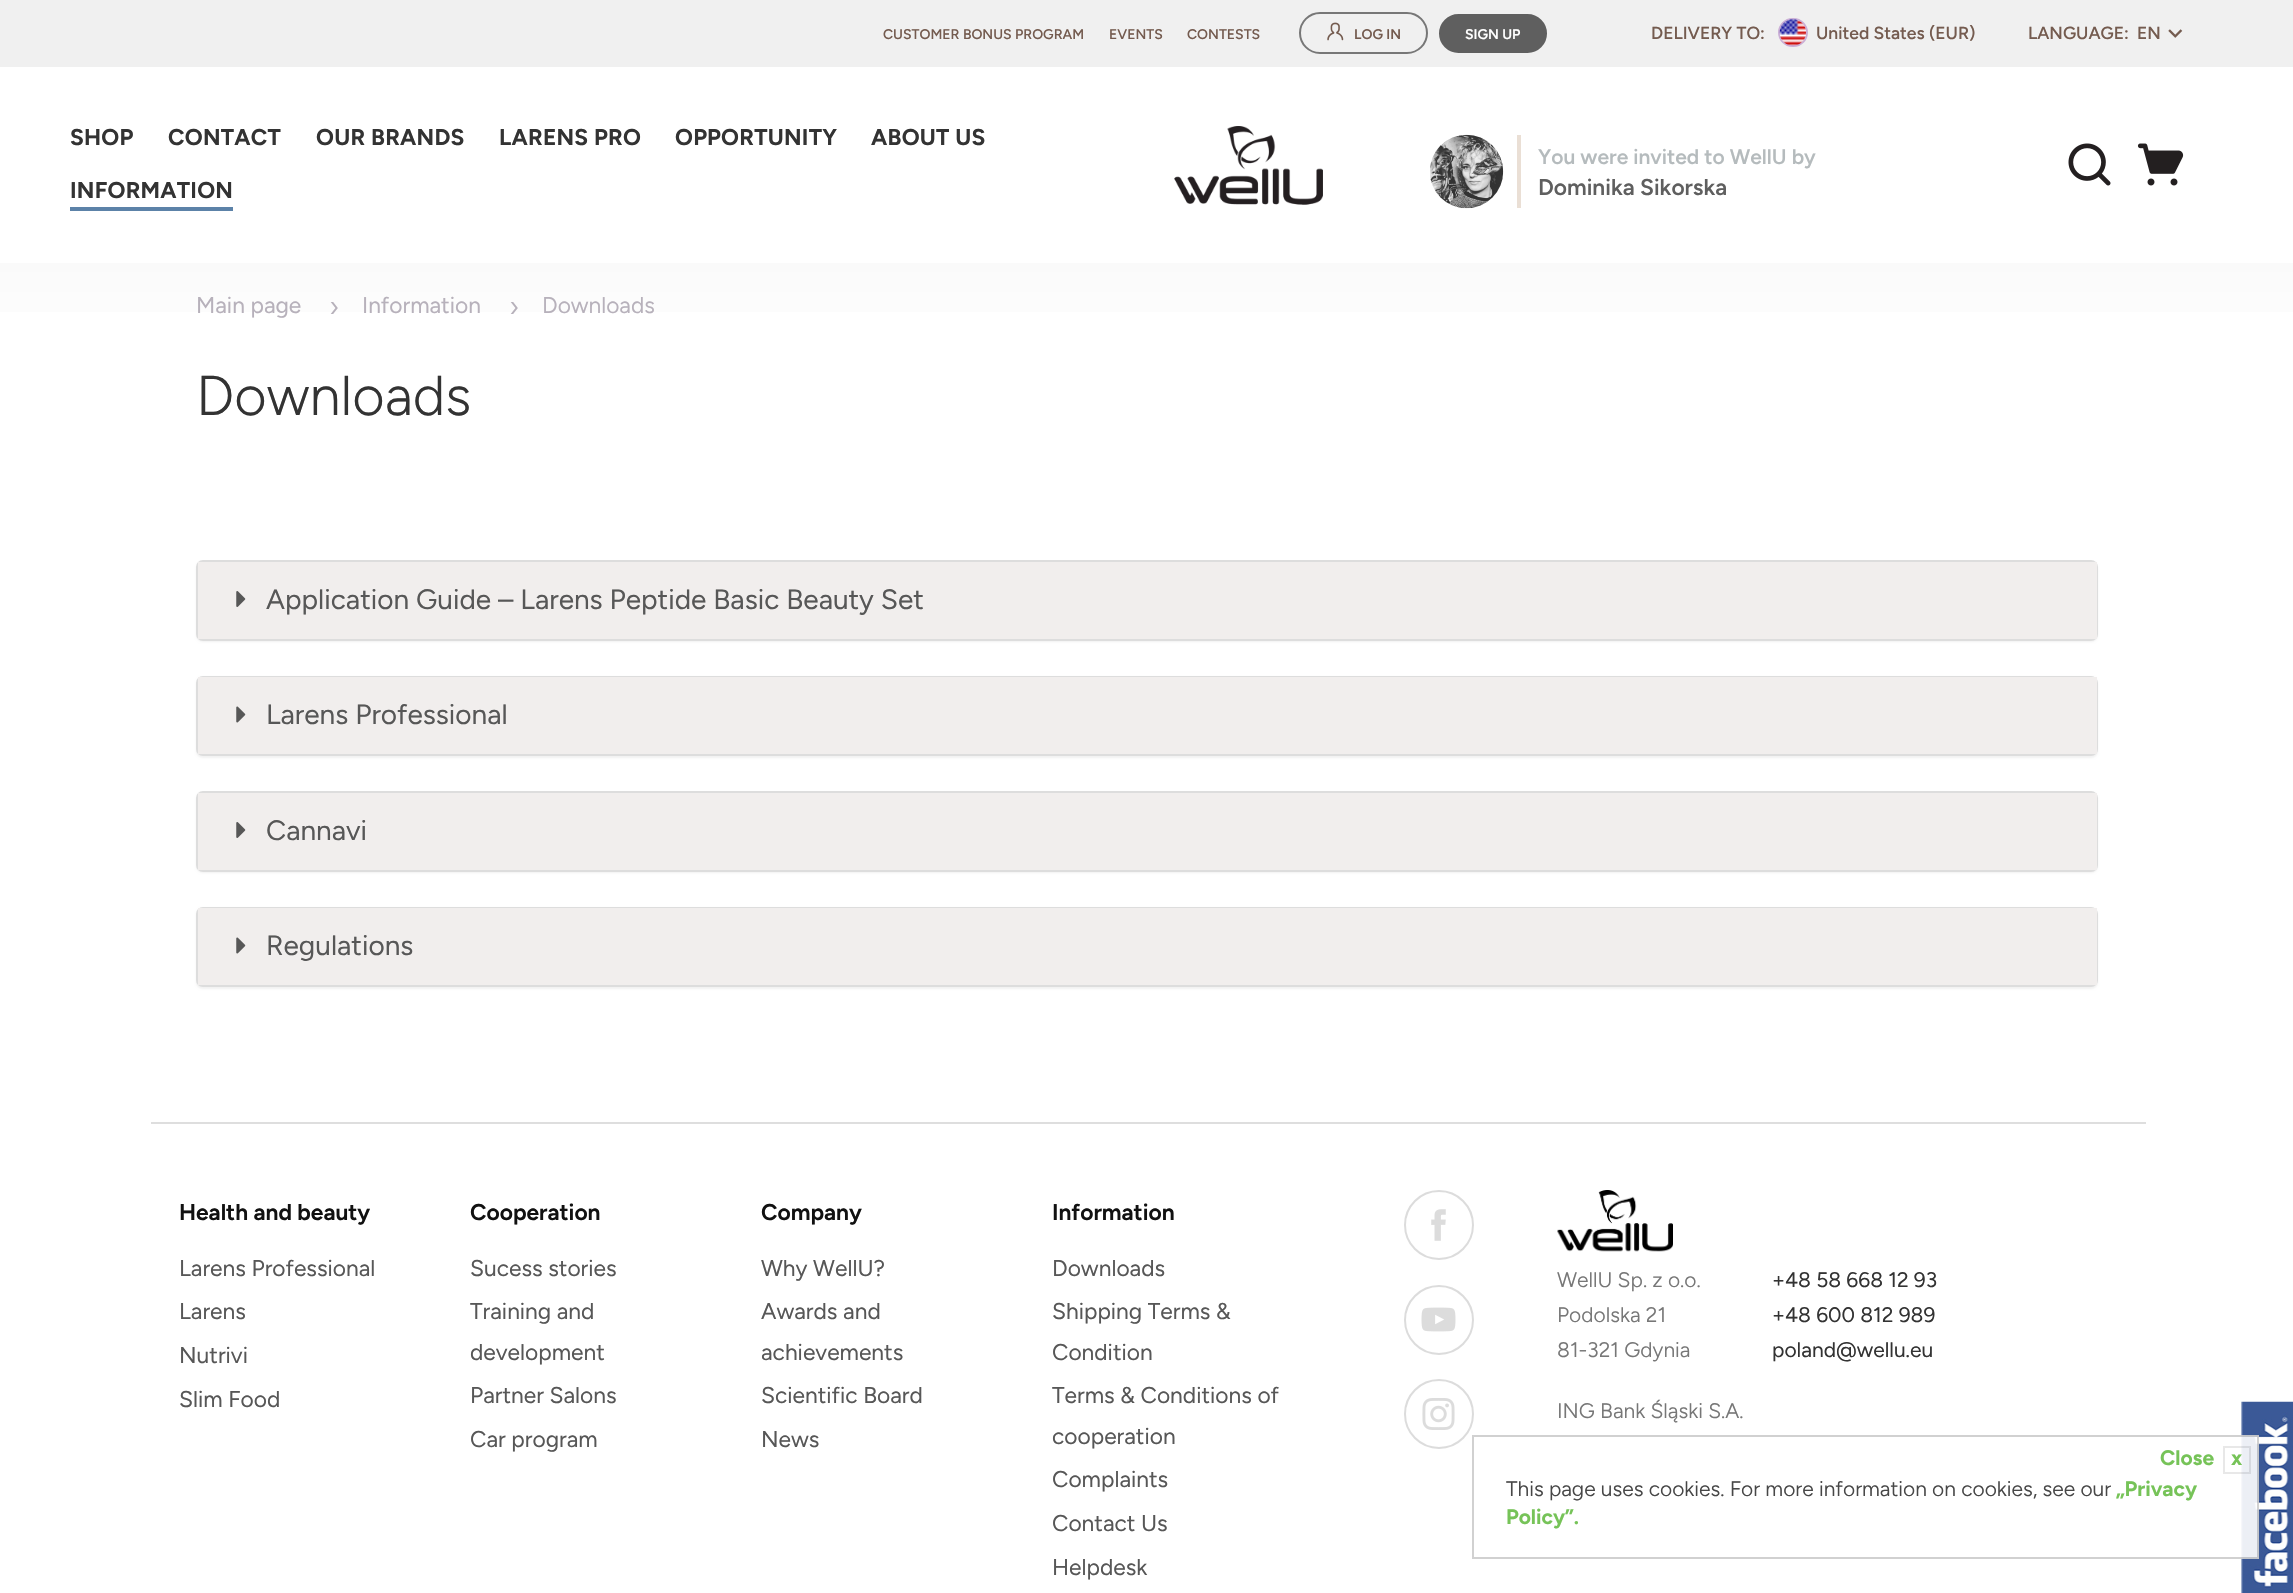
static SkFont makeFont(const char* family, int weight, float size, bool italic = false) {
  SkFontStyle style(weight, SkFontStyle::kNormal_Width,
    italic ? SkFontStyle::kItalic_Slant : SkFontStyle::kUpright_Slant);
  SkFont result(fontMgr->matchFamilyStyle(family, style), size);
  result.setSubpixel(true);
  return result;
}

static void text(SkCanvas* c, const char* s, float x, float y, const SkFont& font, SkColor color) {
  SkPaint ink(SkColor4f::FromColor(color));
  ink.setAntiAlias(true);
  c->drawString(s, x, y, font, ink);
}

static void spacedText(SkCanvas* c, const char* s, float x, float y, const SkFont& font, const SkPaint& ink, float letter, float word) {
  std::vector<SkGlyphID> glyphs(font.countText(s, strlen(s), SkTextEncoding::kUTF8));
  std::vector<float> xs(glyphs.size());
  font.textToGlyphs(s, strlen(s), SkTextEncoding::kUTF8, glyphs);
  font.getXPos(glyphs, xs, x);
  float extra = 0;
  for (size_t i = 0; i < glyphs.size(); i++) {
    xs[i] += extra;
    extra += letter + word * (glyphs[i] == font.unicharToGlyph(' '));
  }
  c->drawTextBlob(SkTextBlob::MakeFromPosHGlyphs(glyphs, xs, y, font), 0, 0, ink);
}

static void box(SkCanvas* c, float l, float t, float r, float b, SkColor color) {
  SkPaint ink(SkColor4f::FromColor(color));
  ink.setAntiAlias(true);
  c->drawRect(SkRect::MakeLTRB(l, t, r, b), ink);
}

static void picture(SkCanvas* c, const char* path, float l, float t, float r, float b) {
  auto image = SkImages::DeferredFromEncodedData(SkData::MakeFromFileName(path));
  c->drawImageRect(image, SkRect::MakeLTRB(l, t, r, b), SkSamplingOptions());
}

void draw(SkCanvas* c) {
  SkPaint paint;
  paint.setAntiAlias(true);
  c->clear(0xffffffff);
  box(c, 0, 0, 2293, 67, 0xfff0f0f0);
  SkFont face1 = makeFont("Figtree", 500, 14);
  text(c, "CUSTOMER BONUS PROGRAM", 883, 39, face1, 0xff745b4f);
  text(c, "EVENTS", 1109, 39, face1, 0xff745b4f);
  text(c, "CONTESTS", 1187, 39, face1, 0xff745b4f);
  paint.setStyle(SkPaint::kStroke_Style);
  paint.setStrokeWidth(2);
  paint.setColor(0xff777777);
  c->drawRoundRect(SkRect::MakeLTRB(1300, 13, 1427, 53), 20, 20, paint);
  picture(c, "img_01.png", 1327, 22, 1344, 41);
  SkFont face2 = makeFont("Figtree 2", 600, 14);
  text(c, "LOG IN", 1354, 39, face2, 0xff745b4f);
  paint.setStyle(SkPaint::kFill_Style);
  paint.setColor(0xff5f5f5f);
  c->drawRoundRect(SkRect::MakeLTRB(1440, 15, 1546, 52), 18.5f, 18.5f, paint);
  paint.setStyle(SkPaint::kStroke_Style);
  c->drawRoundRect(SkRect::MakeLTRB(1440, 15, 1546, 52), 18.5f, 18.5f, paint);
  text(c, "SIGN UP", 1465, 39, face2, 0xffffffff);
  SkFont face3 = makeFont("Figtree", 500, 17.5f);
  text(c, "DELIVERY TO:", 1651, 39, face3, 0xff745b4f);
  paint.setColor(0xffcbafd6);
  c->drawRoundRect(SkRect::MakeLTRB(1779, 19, 1807, 46), 13.5f, 13.5f, paint);
  picture(c, "img_02.png", 1779, 19, 1806, 46);
  text(c, "United States (EUR)", 1816, 39, face3, 0xff745b4f);
  text(c, "LANGUAGE:", 2028, 39, face3, 0xff745b4f);
  text(c, "EN", 2137, 39, face3, 0xff745b4f);
  picture(c, "img_03.png", 2168, 29, 2183, 38);
  SkFont face4 = makeFont("Figtree", 700, 22.75f);
  paint.setStyle(SkPaint::kFill_Style);
  paint.setColor(0xff333333);
  spacedText(c, "SHOP", 70, 145, face4, paint, 0.25f, 0);
  spacedText(c, "CONTACT", 168, 145, face4, paint, 0.25f, 0);
  spacedText(c, "OUR BRANDS", 316, 145, face4, paint, 0.25f, 0);
  spacedText(c, "LARENS PRO", 499, 145, face4, paint, 0.25f, 0);
  spacedText(c, "OPPORTUNITY", 675, 145, face4, paint, 0.25f, 0);
  spacedText(c, "ABOUT US", 871, 145, face4, paint, 0.25f, 0);
  spacedText(c, "INFORMATION", 70, 198, face4, paint, 0.25f, 0);
  box(c, 70, 207, 233, 211, 0xff5c82a8);
  picture(c, "img_04.png", 1174, 126, 1323, 205);
  box(c, 1517, 135, 1521, 208, 0xffeadfd5);
  picture(c, "img_05.png", 1430, 134, 1504, 209);
  SkFont face5 = makeFont("Figtree 2", 600, 21);
  text(c, "You were invited to WellU by", 1538, 164, face5, 0xffb5bbbd);
  SkFont face6 = makeFont("Figtree 2", 600, 22.75f);
  text(c, "Dominika Sikorska", 1538, 195, face6, 0xff5f5f5f);
  picture(c, "img_06.png", 2068, 143, 2111, 186);
  picture(c, "img_07.png", 2137, 143, 2184, 186);
  {
    const SkColor colors[] = {0xfffafafa, 0xffffffff, 0xffffffff};
    const float stops[] = {0, 0.12f, 1};
    const SkPoint ends[] = {{1147, 262}, {1147, 1089}};
    paint.setShader(SkGradientShader::MakeLinear(ends, colors, stops, 3, SkTileMode::kClamp));
    paint.setAlpha(255);
  }
  c->drawRect(SkRect::MakeLTRB(0, 263, 2293, 312), paint);
  SkFont face7 = makeFont("Figtree", 400, 22.75f);
  text(c, "Main page", 196, 313, face7, 0xffb7b1bb);
  SkFont face8 = makeFont("Figtree", 300, 30);
  text(c, "›", 329, 317, face8, 0xffb7b1bb);
  text(c, "Information", 362, 313, face7, 0xffb7b1bb);
  text(c, "›", 509, 317, face8, 0xffb7b1bb);
  SkFont face9 = makeFont("Figtree 2", 400, 22.75f);
  text(c, "Downloads", 542, 313, face9, 0xffb7b1bb);
  SkFont face10 = makeFont("Figtree", 300, 56);
  text(c, "Downloads", 196, 415, face10, 0xff333333);
  paint.setShader(nullptr);
  paint.setColor(0x0d000000);
  paint.setMaskFilter(SkMaskFilter::MakeBlur(kNormal_SkBlurStyle, 1));
  c->drawRoundRect(SkRect::MakeLTRB(196, 562, 2098, 642), 7, 7, paint);
  paint.setMaskFilter(nullptr);
  paint.setStyle(SkPaint::kStroke_Style);
  paint.setColor(0xffdddddd);
  c->drawRoundRect(SkRect::MakeLTRB(197, 561, 2097, 640), 6, 6, paint);
  box(c, 198, 562, 2097, 639, 0xfff1eeed);
  picture(c, "img_08.png", 236, 591, 246, 607);
  SkFont face11 = makeFont("Figtree", 400, 28);
  text(c, "Application Guide – Larens Peptide Basic Beauty Set", 266, 609, face11, 0xff575757);
  paint.setStyle(SkPaint::kFill_Style);
  paint.setColor(0x0d000000);
  paint.setMaskFilter(SkMaskFilter::MakeBlur(kNormal_SkBlurStyle, 1));
  c->drawRoundRect(SkRect::MakeLTRB(196, 677, 2098, 758), 7, 7, paint);
  paint.setMaskFilter(nullptr);
  paint.setStyle(SkPaint::kStroke_Style);
  paint.setColor(0xffdddddd);
  c->drawRoundRect(SkRect::MakeLTRB(197, 677, 2097, 755), 6, 6, paint);
  box(c, 198, 677, 2097, 754, 0xfff1eeed);
  picture(c, "img_09.png", 236, 706, 246, 723);
  text(c, "Larens Professional", 266, 724, face11, 0xff575757);
  paint.setStyle(SkPaint::kFill_Style);
  paint.setColor(0x0d000000);
  paint.setMaskFilter(SkMaskFilter::MakeBlur(kNormal_SkBlurStyle, 1));
  c->drawRoundRect(SkRect::MakeLTRB(196, 793, 2098, 873), 7, 7, paint);
  paint.setMaskFilter(nullptr);
  paint.setStyle(SkPaint::kStroke_Style);
  paint.setColor(0xffdddddd);
  c->drawRoundRect(SkRect::MakeLTRB(197, 792, 2097, 871), 6, 6, paint);
  box(c, 198, 793, 2097, 870, 0xfff1eeed);
  picture(c, "img_08.png", 236, 822, 246, 838);
  text(c, "Cannavi", 266, 840, face11, 0xff575757);
  paint.setStyle(SkPaint::kFill_Style);
  paint.setColor(0x0d000000);
  paint.setMaskFilter(SkMaskFilter::MakeBlur(kNormal_SkBlurStyle, 1));
  c->drawRoundRect(SkRect::MakeLTRB(196, 908, 2098, 989), 7, 7, paint);
  paint.setMaskFilter(nullptr);
  paint.setStyle(SkPaint::kStroke_Style);
  paint.setColor(0xffdddddd);
  c->drawRoundRect(SkRect::MakeLTRB(197, 908, 2097, 986), 6, 6, paint);
  box(c, 198, 908, 2097, 985, 0xfff1eeed);
  picture(c, "img_09.png", 236, 937, 246, 954);
  text(c, "Regulations", 266, 955, face11, 0xff575757);
  box(c, 151, 1122, 2146, 1124, 0xffdedede);
  SkFont face12 = makeFont("Figtree", 600, 22.75f);
  text(c, "Health and beauty", 179, 1220, face12, 0xff111111);
  text(c, "Larens Professional", 179, 1276, face7, 0xff575757);
  text(c, "Larens", 179, 1319, face7, 0xff575757);
  text(c, "Nutrivi", 179, 1363, face7, 0xff575757);
  text(c, "Slim Food", 179, 1407, face7, 0xff575757);
  text(c, "Cooperation", 470, 1220, face12, 0xff111111);
  text(c, "Sucess stories", 470, 1276, face7, 0xff575757);
  text(c, "Training and", 470, 1319, face7, 0xff575757);
  text(c, "development", 470, 1360, face7, 0xff575757);
  text(c, "Partner Salons", 470, 1403, face7, 0xff575757);
  text(c, "Car program", 470, 1447, face7, 0xff575757);
  text(c, "Company", 761, 1220, face12, 0xff111111);
  text(c, "Why WellU?", 761, 1276, face7, 0xff575757);
  text(c, "Awards and", 761, 1319, face7, 0xff575757);
  text(c, "achievements", 761, 1360, face7, 0xff575757);
  text(c, "Scientific Board", 761, 1403, face7, 0xff575757);
  text(c, "News", 761, 1447, face7, 0xff575757);
  text(c, "Information", 1052, 1220, face12, 0xff111111);
  text(c, "Downloads", 1052, 1276, face7, 0xff575757);
  text(c, "Shipping Terms &", 1052, 1319, face7, 0xff575757);
  text(c, "Condition", 1052, 1360, face7, 0xff575757);
  text(c, "Terms & Conditions of", 1052, 1403, face7, 0xff575757);
  text(c, "cooperation", 1052, 1444, face7, 0xff575757);
  text(c, "Complaints", 1052, 1487, face7, 0xff575757);
  text(c, "Contact Us", 1052, 1531, face7, 0xff575757);
  text(c, "Helpdesk", 1052, 1575, face7, 0xff575757);
  paint.setColor(0xffdcdcdc);
  c->drawCircle(1439, 1225, 34, paint);
  picture(c, "img_10.png", 1431, 1209, 1446, 1241);
  c->drawCircle(1439, 1320, 34, paint);
  picture(c, "img_11.png", 1421, 1307, 1456, 1332);
  c->drawCircle(1439, 1414, 34, paint);
  picture(c, "img_12.png", 1422, 1398, 1455, 1430);
  picture(c, "img_13.png", 1557, 1190, 1673, 1252);
  SkFont face13 = makeFont("Figtree 2", 300, 21);
  text(c, "WellU Sp. z o.o.", 1557, 1287, face13, 0xff777777);
  text(c, "Podolska 21", 1557, 1322, face13, 0xff777777);
  text(c, "81-321 Gdynia", 1557, 1357, face13, 0xff777777);
  SkFont face14 = makeFont("Figtree", 400, 21);
  text(c, "+48 58 668 12 93", 1772, 1287, face14, 0xff333333);
  text(c, "+48 600 812 989", 1772, 1322, face14, 0xff333333);
  text(c, "poland@wellu.eu", 1772, 1357, face14, 0xff333333);
  text(c, "ING Bank Śląski S.A.", 1557, 1418, face13, 0xff777777);
  picture(c, "img_14.png", 2241, 1401, 2293, 1593);
  box(c, 2241, 1435, 2259, 1559, 0xe6ffffff);
  paint.setColor(0x2e000000);
  c->drawRect(SkRect::MakeLTRB(1473, 1436, 2258, 1558), paint);
  SkFont face15 = makeFont("Figtree", 700, 21);
  text(c, "Close", 2160, 1465, face15, 0xff76c358);
  paint.setColor(0x17000000);
  c->drawRect(SkRect::MakeLTRB(2224, 1447, 2250, 1473), paint);
  text(c, "x", 2231, 1465, face15, 0xff76c358);
  text(c, "This page uses cookies. For more information on cookies, see our", 1506, 1496, face13, 0xff474747);
  text(c, "„Privacy", 2116, 1496, face15, 0xff76c358);
  text(c, "Policy”.", 1506, 1524, face15, 0xff76c358);
}
